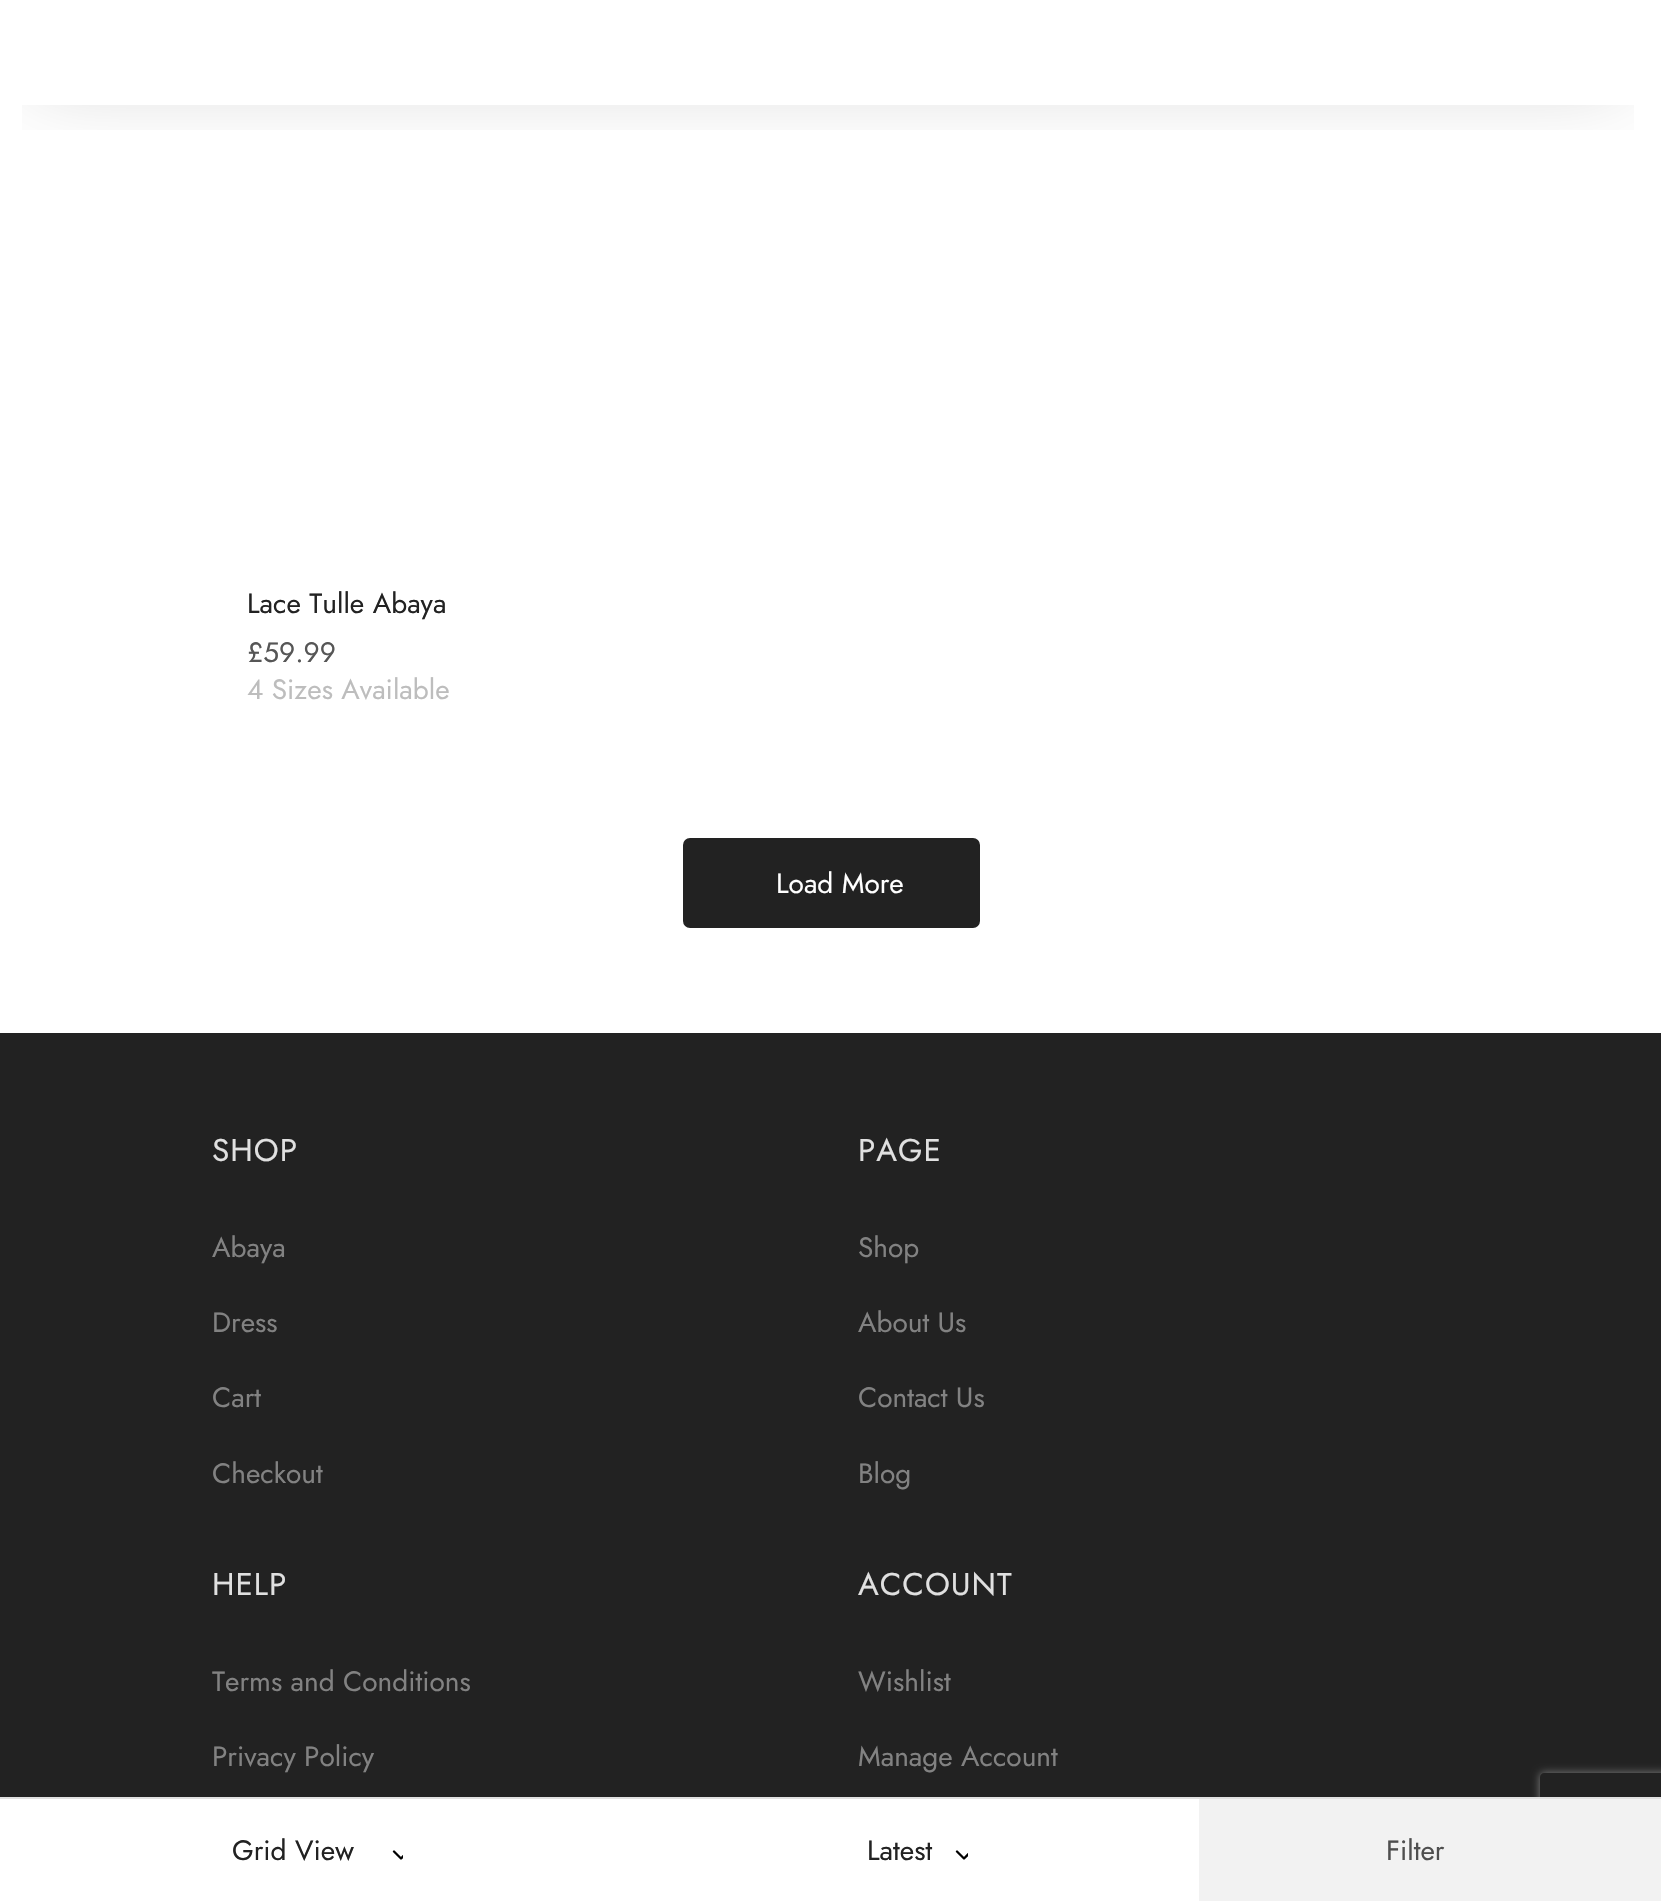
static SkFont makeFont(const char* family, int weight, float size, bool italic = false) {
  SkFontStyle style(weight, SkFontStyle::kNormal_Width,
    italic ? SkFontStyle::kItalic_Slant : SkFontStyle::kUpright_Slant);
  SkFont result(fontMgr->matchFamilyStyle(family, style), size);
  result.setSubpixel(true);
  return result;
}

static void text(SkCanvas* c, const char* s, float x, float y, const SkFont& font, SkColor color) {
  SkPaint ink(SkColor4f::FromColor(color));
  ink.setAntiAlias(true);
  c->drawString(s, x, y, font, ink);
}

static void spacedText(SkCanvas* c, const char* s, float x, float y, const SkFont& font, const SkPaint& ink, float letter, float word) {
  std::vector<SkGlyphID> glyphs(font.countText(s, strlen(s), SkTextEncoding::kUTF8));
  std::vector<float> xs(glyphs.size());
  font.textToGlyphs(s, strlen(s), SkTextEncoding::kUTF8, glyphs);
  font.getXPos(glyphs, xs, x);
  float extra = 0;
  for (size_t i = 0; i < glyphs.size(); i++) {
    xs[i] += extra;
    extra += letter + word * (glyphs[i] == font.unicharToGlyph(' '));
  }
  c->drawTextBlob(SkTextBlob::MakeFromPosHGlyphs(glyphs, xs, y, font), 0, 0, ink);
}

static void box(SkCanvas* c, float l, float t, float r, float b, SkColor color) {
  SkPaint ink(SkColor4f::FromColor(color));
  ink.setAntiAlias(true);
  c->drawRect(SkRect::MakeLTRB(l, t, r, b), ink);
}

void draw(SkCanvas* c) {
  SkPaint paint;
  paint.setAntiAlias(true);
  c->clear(0xffffffff);
  c->save();
  c->clipRect(SkRect::MakeLTRB(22, 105, 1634, 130));
  paint.setColor(0x4d000000);
  paint.setMaskFilter(SkMaskFilter::MakeBlur(kNormal_SkBlurStyle, 39.5f));
  c->drawRect(SkRect::MakeLTRB(32, 39, 1624, 74), paint);
  paint.setMaskFilter(nullptr);
  c->restore();
  SkFont face1 = makeFont("Jost", 400, 28);
  text(c, "Lace Tulle Abaya", 247, 613, face1, 0xff222222);
  text(c, "£59.99", 247, 662, face1, 0xff565656);
  text(c, "4 Sizes Available", 247, 699, face1, 0xffbdbdbd);
  paint.setColor(0xff222222);
  c->drawRoundRect(SkRect::MakeLTRB(685, 840, 978, 926), 5, 5, paint);
  paint.setStyle(SkPaint::kStroke_Style);
  paint.setStrokeWidth(4);
  c->drawRoundRect(SkRect::MakeLTRB(685, 840, 978, 926), 5, 5, paint);
  text(c, "Load More", 776, 893, face1, 0xffffffff);
  box(c, 0, 1033, 1661, 1797, 0xff222222);
  SkFont face2 = makeFont("Jost", 400, 31.5f);
  paint.setStyle(SkPaint::kFill_Style);
  paint.setColor(0xffe0e0e0);
  spacedText(c, "SHOP", 212, 1161, face2, paint, 1, 0);
  text(c, "Abaya", 212, 1257, face1, 0xff828282);
  text(c, "Dress", 212, 1332, face1, 0xff828282);
  text(c, "Cart", 212, 1407, face1, 0xff828282);
  text(c, "Checkout", 212, 1483, face1, 0xff828282);
  spacedText(c, "PAGE", 858, 1161, face2, paint, 1, 0);
  text(c, "Shop", 858, 1257, face1, 0xff828282);
  text(c, "About Us", 858, 1332, face1, 0xff828282);
  text(c, "Contact Us", 858, 1407, face1, 0xff828282);
  text(c, "Blog", 858, 1483, face1, 0xff828282);
  spacedText(c, "HELP", 212, 1595, face2, paint, 1, 0);
  text(c, "Terms and Conditions", 212, 1691, face1, 0xff828282);
  text(c, "Privacy Policy", 212, 1766, face1, 0xff828282);
  spacedText(c, "ACCOUNT", 858, 1595, face2, paint, 1, 0);
  text(c, "Wishlist", 858, 1691, face1, 0xff828282);
  text(c, "Manage Account", 858, 1766, face1, 0xff828282);
  c->save();
  c->clipPath(SkPathBuilder(SkPathFillType::kEvenOdd).moveTo(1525, 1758).lineTo(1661, 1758).lineTo(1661, 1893).lineTo(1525, 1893).close().moveTo(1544, 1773).lineTo(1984, 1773).cubicTo(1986, 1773, 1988, 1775, 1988, 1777).lineTo(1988, 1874).cubicTo(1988, 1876, 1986, 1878, 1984, 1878).lineTo(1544, 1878).cubicTo(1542, 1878, 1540, 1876, 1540, 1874).lineTo(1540, 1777).cubicTo(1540, 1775, 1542, 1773, 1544, 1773).close().detach(), true);
  paint.setColor(0xff808080);
  paint.setMaskFilter(SkMaskFilter::MakeBlur(kNormal_SkBlurStyle, 4.5f));
  c->drawRoundRect(SkRect::MakeLTRB(1540, 1773, 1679, 1878), 4, 4, paint);
  paint.setMaskFilter(nullptr);
  c->restore();
  box(c, 0, 1797, 1661, 1799, 0xffe0e0e0);
  text(c, "Grid View", 232, 1860, face1, 0xff222222);
  c->save();
  c->clipRect(SkRect::MakeLTRB(387, 1841, 403, 1862));
  paint.setStyle(SkPaint::kStroke_Style);
  paint.setStrokeWidth(2.3f);
  paint.setStrokeCap(SkPaint::kRound_Cap);
  paint.setStrokeJoin(SkPaint::kRound_Join);
  paint.setColor(0xff000000);
  c->drawPath(SkPathBuilder().moveTo(394, 1851.5f).lineTo(401, 1858.5f).lineTo(408, 1851.5f).detach(), paint);
  c->restore();
  text(c, "Latest", 867, 1860, face1, 0xff222222);
  c->save();
  c->clipRect(SkRect::MakeLTRB(950, 1841, 968, 1862));
  c->drawPath(SkPathBuilder().moveTo(957, 1851.5f).lineTo(964, 1858.5f).lineTo(971, 1851.5f).detach(), paint);
  c->restore();
  box(c, 1199, 1799, 1661, 1901, 0xfff2f2f2);
  text(c, "Filter", 1386, 1860, face1, 0xff4f4f4f);
}
